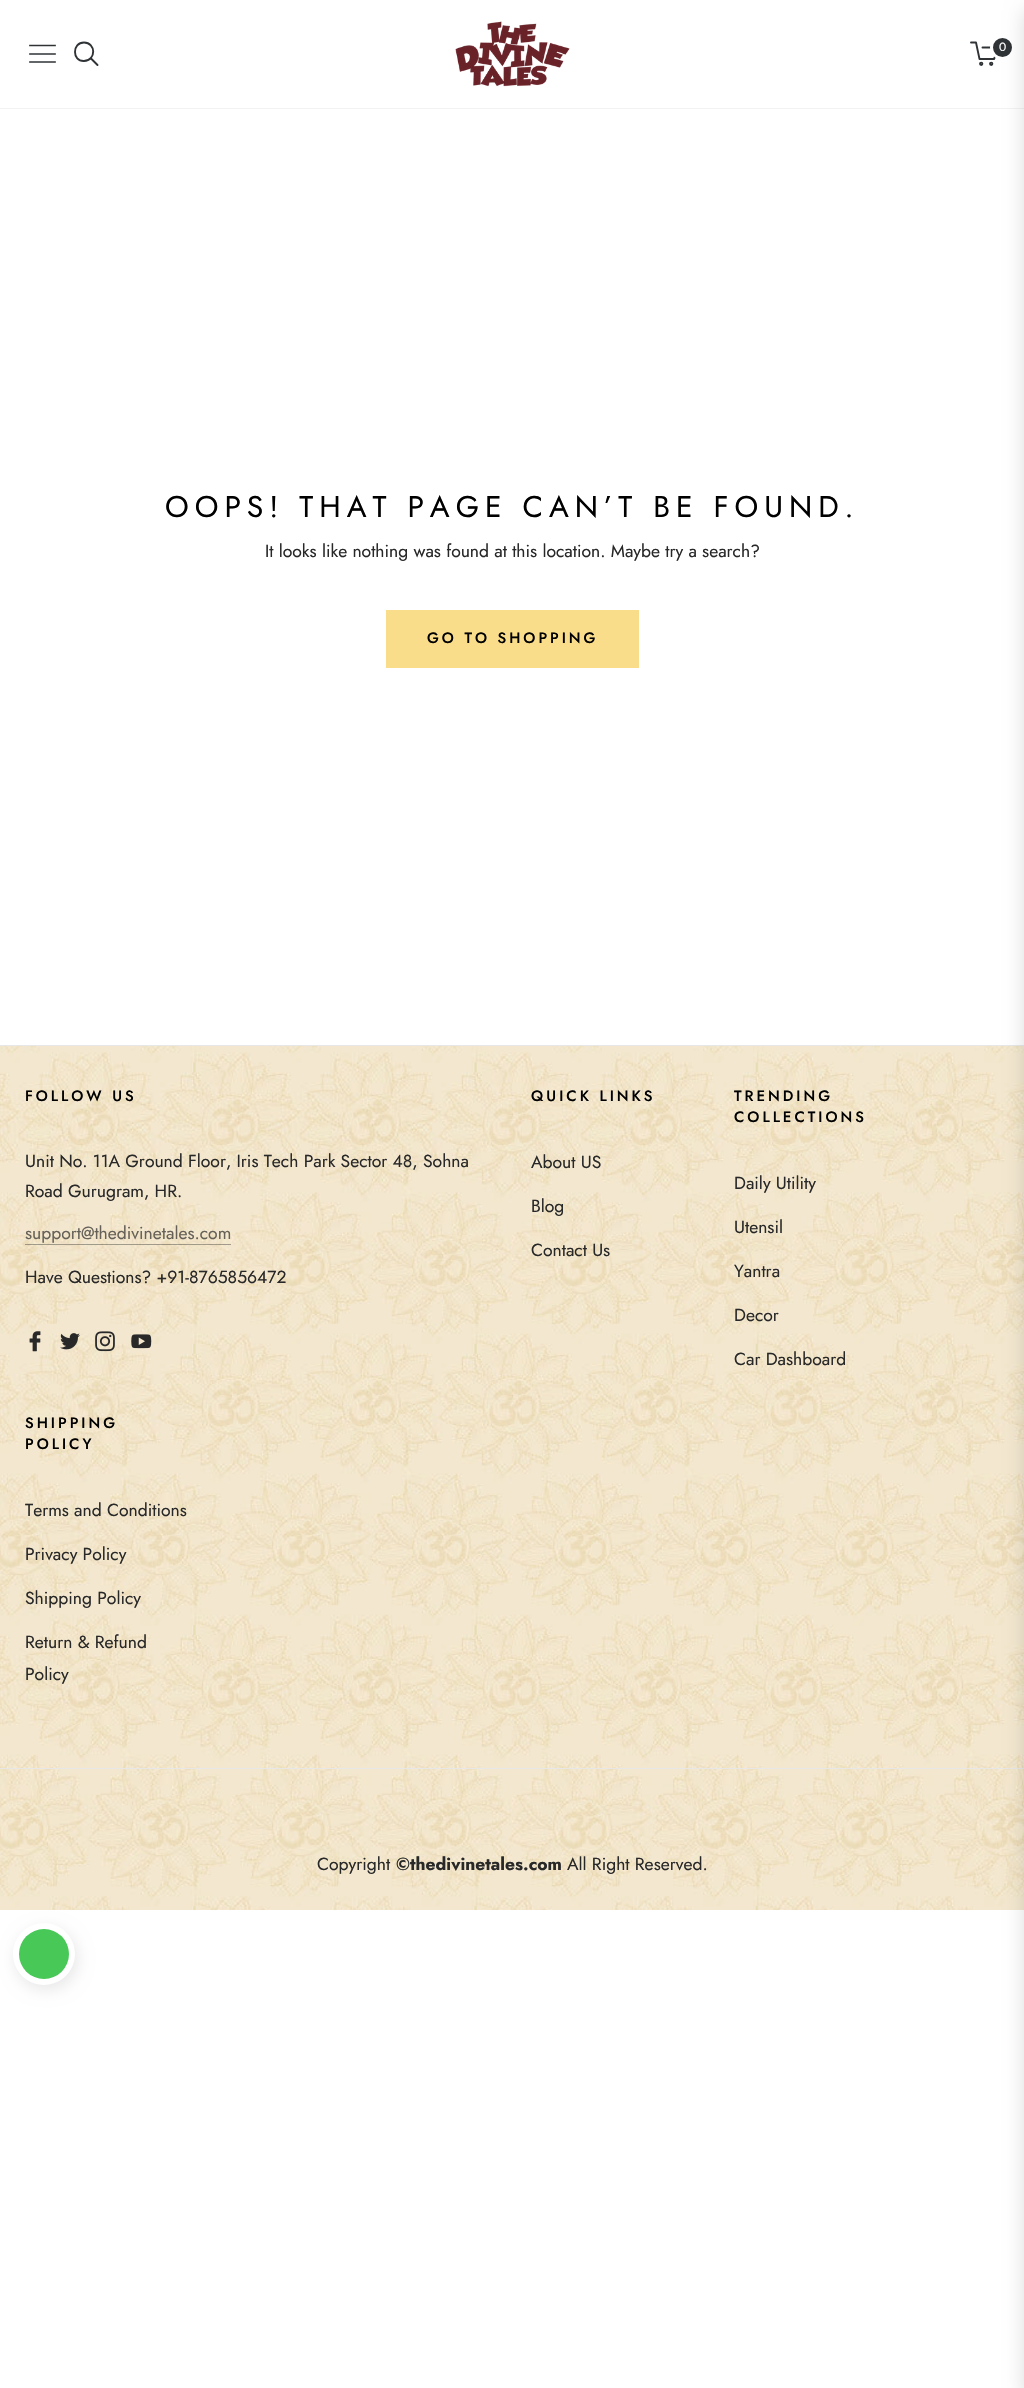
static SkFont makeFont(const char* family, int weight, float size, bool italic = false) {
  SkFontStyle style(weight, SkFontStyle::kNormal_Width,
    italic ? SkFontStyle::kItalic_Slant : SkFontStyle::kUpright_Slant);
  SkFont result(fontMgr->matchFamilyStyle(family, style), size);
  result.setSubpixel(true);
  return result;
}

static void text(SkCanvas* c, const char* s, float x, float y, const SkFont& font, SkColor color) {
  SkPaint ink(SkColor4f::FromColor(color));
  ink.setAntiAlias(true);
  c->drawString(s, x, y, font, ink);
}

static void spacedText(SkCanvas* c, const char* s, float x, float y, const SkFont& font, const SkPaint& ink, float letter, float word) {
  std::vector<SkGlyphID> glyphs(font.countText(s, strlen(s), SkTextEncoding::kUTF8));
  std::vector<float> xs(glyphs.size());
  font.textToGlyphs(s, strlen(s), SkTextEncoding::kUTF8, glyphs);
  font.getXPos(glyphs, xs, x);
  float extra = 0;
  for (size_t i = 0; i < glyphs.size(); i++) {
    xs[i] += extra;
    extra += letter + word * (glyphs[i] == font.unicharToGlyph(' '));
  }
  c->drawTextBlob(SkTextBlob::MakeFromPosHGlyphs(glyphs, xs, y, font), 0, 0, ink);
}

static void box(SkCanvas* c, float l, float t, float r, float b, SkColor color) {
  SkPaint ink(SkColor4f::FromColor(color));
  ink.setAntiAlias(true);
  c->drawRect(SkRect::MakeLTRB(l, t, r, b), ink);
}

static void picture(SkCanvas* c, const char* path, float l, float t, float r, float b) {
  auto image = SkImages::DeferredFromEncodedData(SkData::MakeFromFileName(path));
  c->drawImageRect(image, SkRect::MakeLTRB(l, t, r, b), SkSamplingOptions());
}

void draw(SkCanvas* c) {
  SkPaint paint;
  paint.setAntiAlias(true);
  c->clear(0xffffffff);
  paint.setStyle(SkPaint::kStroke_Style);
  paint.setStrokeWidth(1);
  paint.setColor(0xfff2f2f2);
  c->drawRect(SkRect::MakeLTRB(-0.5f, -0.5f, 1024.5f, 108.5f), paint);
  paint.setStrokeWidth(1.7f);
  paint.setStrokeCap(SkPaint::kSquare_Cap);
  paint.setColor(0xff2f3336);
  c->drawPath(SkPathBuilder().moveTo(30, 62).lineTo(55, 62).moveTo(30, 54).lineTo(55, 54).moveTo(30, 45.5f).lineTo(55, 45.5f).detach(), paint);
  paint.setStrokeWidth(1.9f);
  paint.setStrokeCap(SkPaint::kButt_Cap);
  c->drawPath(SkPathBuilder().moveTo(84, 42.5f).cubicTo(72, 42.5f, 72, 61.5f, 84, 61).cubicTo(96.5f, 60.5f, 96, 42.5f, 84, 42.5f).close().detach(), paint);
  paint.setStrokeCap(SkPaint::kRound_Cap);
  c->drawPath(SkPathBuilder().moveTo(91, 58.5f).lineTo(97.5f, 65).detach(), paint);
  picture(c, "img_01.png", 455, 21, 570, 87);
  paint.setStrokeJoin(SkPaint::kRound_Join);
  c->drawPath(SkPathBuilder().moveTo(982.5f, 47.5f).lineTo(999, 47.5f).lineTo(994, 59).lineTo(979.5f, 59).lineTo(976, 42.5f).lineTo(971, 42.5f).detach(), paint);
  paint.setStyle(SkPaint::kFill_Style);
  c->drawCircle(1002.5f, 47.5f, 11, paint);
  paint.setStyle(SkPaint::kStroke_Style);
  paint.setStrokeWidth(3);
  paint.setStrokeCap(SkPaint::kButt_Cap);
  paint.setStrokeJoin(SkPaint::kMiter_Join);
  paint.setColor(0xffffffff);
  c->drawCircle(1002.5f, 47.5f, 11, paint);
  picture(c, "img_02.png", 0, 1046, 1024, 1910);
  box(c, 0, 1045, 1024, 1046, 0xffe7e7e7);
  box(c, 0, 1768, 1024, 1769, 0xffe7e7e7);
  paint.setStyle(SkPaint::kFill_Style);
  paint.setColor(0x26000000);
  paint.setMaskFilter(SkMaskFilter::MakeBlur(kNormal_SkBlurStyle, 10));
  c->drawRect(SkRect::MakeLTRB(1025, 10, 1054, 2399), paint);
  paint.setMaskFilter(nullptr);
  paint.setStyle(SkPaint::kStroke_Style);
  paint.setStrokeWidth(1.9f);
  paint.setColor(0xff2f3336);
  c->drawCircle(981.2f, 63.8f, 1.2f, paint);
  c->drawCircle(991.2f, 63.8f, 1.2f, paint);
  SkFont face1 = makeFont("Jost", 400, 12);
  text(c, "0", 999, 51, face1, 0xffffffff);
  SkFont face2 = makeFont("Jost", 400, 30);
  paint.setStyle(SkPaint::kFill_Style);
  paint.setColor(0xff000000);
  spacedText(c, "OOPS! THAT PAGE CAN’T BE FOUND.", 165, 517, face2, paint, 6, 0);
  SkFont face3 = makeFont("Jost", 400, 17.5f);
  text(c, "It looks like nothing was found at this location. Maybe try a search?", 265, 557, face3, 0xff282828);
  box(c, 386, 610, 639, 668, 0xfff9dd8a);
  SkFont face4 = makeFont("Jost", 500, 15);
  spacedText(c, "GO TO SHOPPING", 427, 643, face4, paint, 3, 0);
  spacedText(c, "FOLLOW US", 25, 1101, face4, paint, 3, 0);
  text(c, "Unit No. 11A Ground Floor, Iris Tech Park Sector 48, Sohna", 25, 1167, face3, 0xff282828);
  text(c, "Road Gurugram, HR.", 25, 1197, face3, 0xff282828);
  text(c, "support@thedivinetales.com", 25, 1239, face3, 0xff656158);
  box(c, 25, 1244, 231, 1245, 0x66282828);
  text(c, "Have Questions? +91-8765856472", 25, 1283, face3, 0xff282828);
  picture(c, "img_03.png", 29, 1331, 41, 1352);
  picture(c, "img_04.png", 60, 1333, 80, 1350);
  picture(c, "img_05.png", 95, 1331, 115, 1352);
  picture(c, "img_06.png", 131, 1334, 152, 1349);
  spacedText(c, "QUICK LINKS", 531, 1101, face4, paint, 3, 0);
  text(c, "About US", 531, 1168, face3, 0xff282828);
  text(c, "Blog", 531, 1212, face3, 0xff282828);
  text(c, "Contact Us", 531, 1256, face3, 0xff282828);
  spacedText(c, "TRENDING", 734, 1101, face4, paint, 3, 0);
  spacedText(c, "COLLECTIONS", 734, 1122, face4, paint, 3, 0);
  text(c, "Daily Utility", 734, 1189, face3, 0xff282828);
  text(c, "Utensil", 734, 1233, face3, 0xff282828);
  text(c, "Yantra", 734, 1277, face3, 0xff282828);
  text(c, "Decor", 734, 1321, face3, 0xff282828);
  text(c, "Car Dashboard", 734, 1365, face3, 0xff282828);
  spacedText(c, "SHIPPING", 25, 1428, face4, paint, 3, 0);
  spacedText(c, "POLICY", 25, 1449, face4, paint, 3, 0);
  text(c, "Terms and Conditions", 25, 1516, face3, 0xff282828);
  text(c, "Privacy Policy", 25, 1560, face3, 0xff282828);
  text(c, "Shipping Policy", 25, 1604, face3, 0xff282828);
  text(c, "Return & Refund", 25, 1648, face3, 0xff282828);
  text(c, "Policy", 25, 1680, face3, 0xff282828);
  text(c, "Copyright", 317, 1870, face3, 0xff282828);
  SkFont face5 = makeFont("Jost", 700, 17.5f);
  text(c, "©thedivinetales.com", 396, 1870, face5, 0xff282828);
  text(c, "All Right Reserved.", 567, 1870, face3, 0xff282828);
  c->save();
  c->clipPath(SkPathBuilder(SkPathFillType::kEvenOdd).moveTo(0, 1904).lineTo(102, 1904).lineTo(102, 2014).lineTo(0, 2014).close().moveTo(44, 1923).cubicTo(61, 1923, 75, 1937, 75, 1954).cubicTo(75, 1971, 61, 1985, 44, 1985).cubicTo(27, 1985, 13, 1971, 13, 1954).cubicTo(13, 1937, 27, 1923, 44, 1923).close().detach(), true);
  paint.setColor(0x17000000);
  paint.setMaskFilter(SkMaskFilter::MakeBlur(kNormal_SkBlurStyle, 7.5f));
  c->drawRoundRect(SkRect::MakeLTRB(15, 1928, 78, 1990), 31, 31, paint);
  paint.setMaskFilter(nullptr);
  c->restore();
  paint.setColor(0xff47c857);
  c->drawCircle(44, 1954, 25, paint);
}
